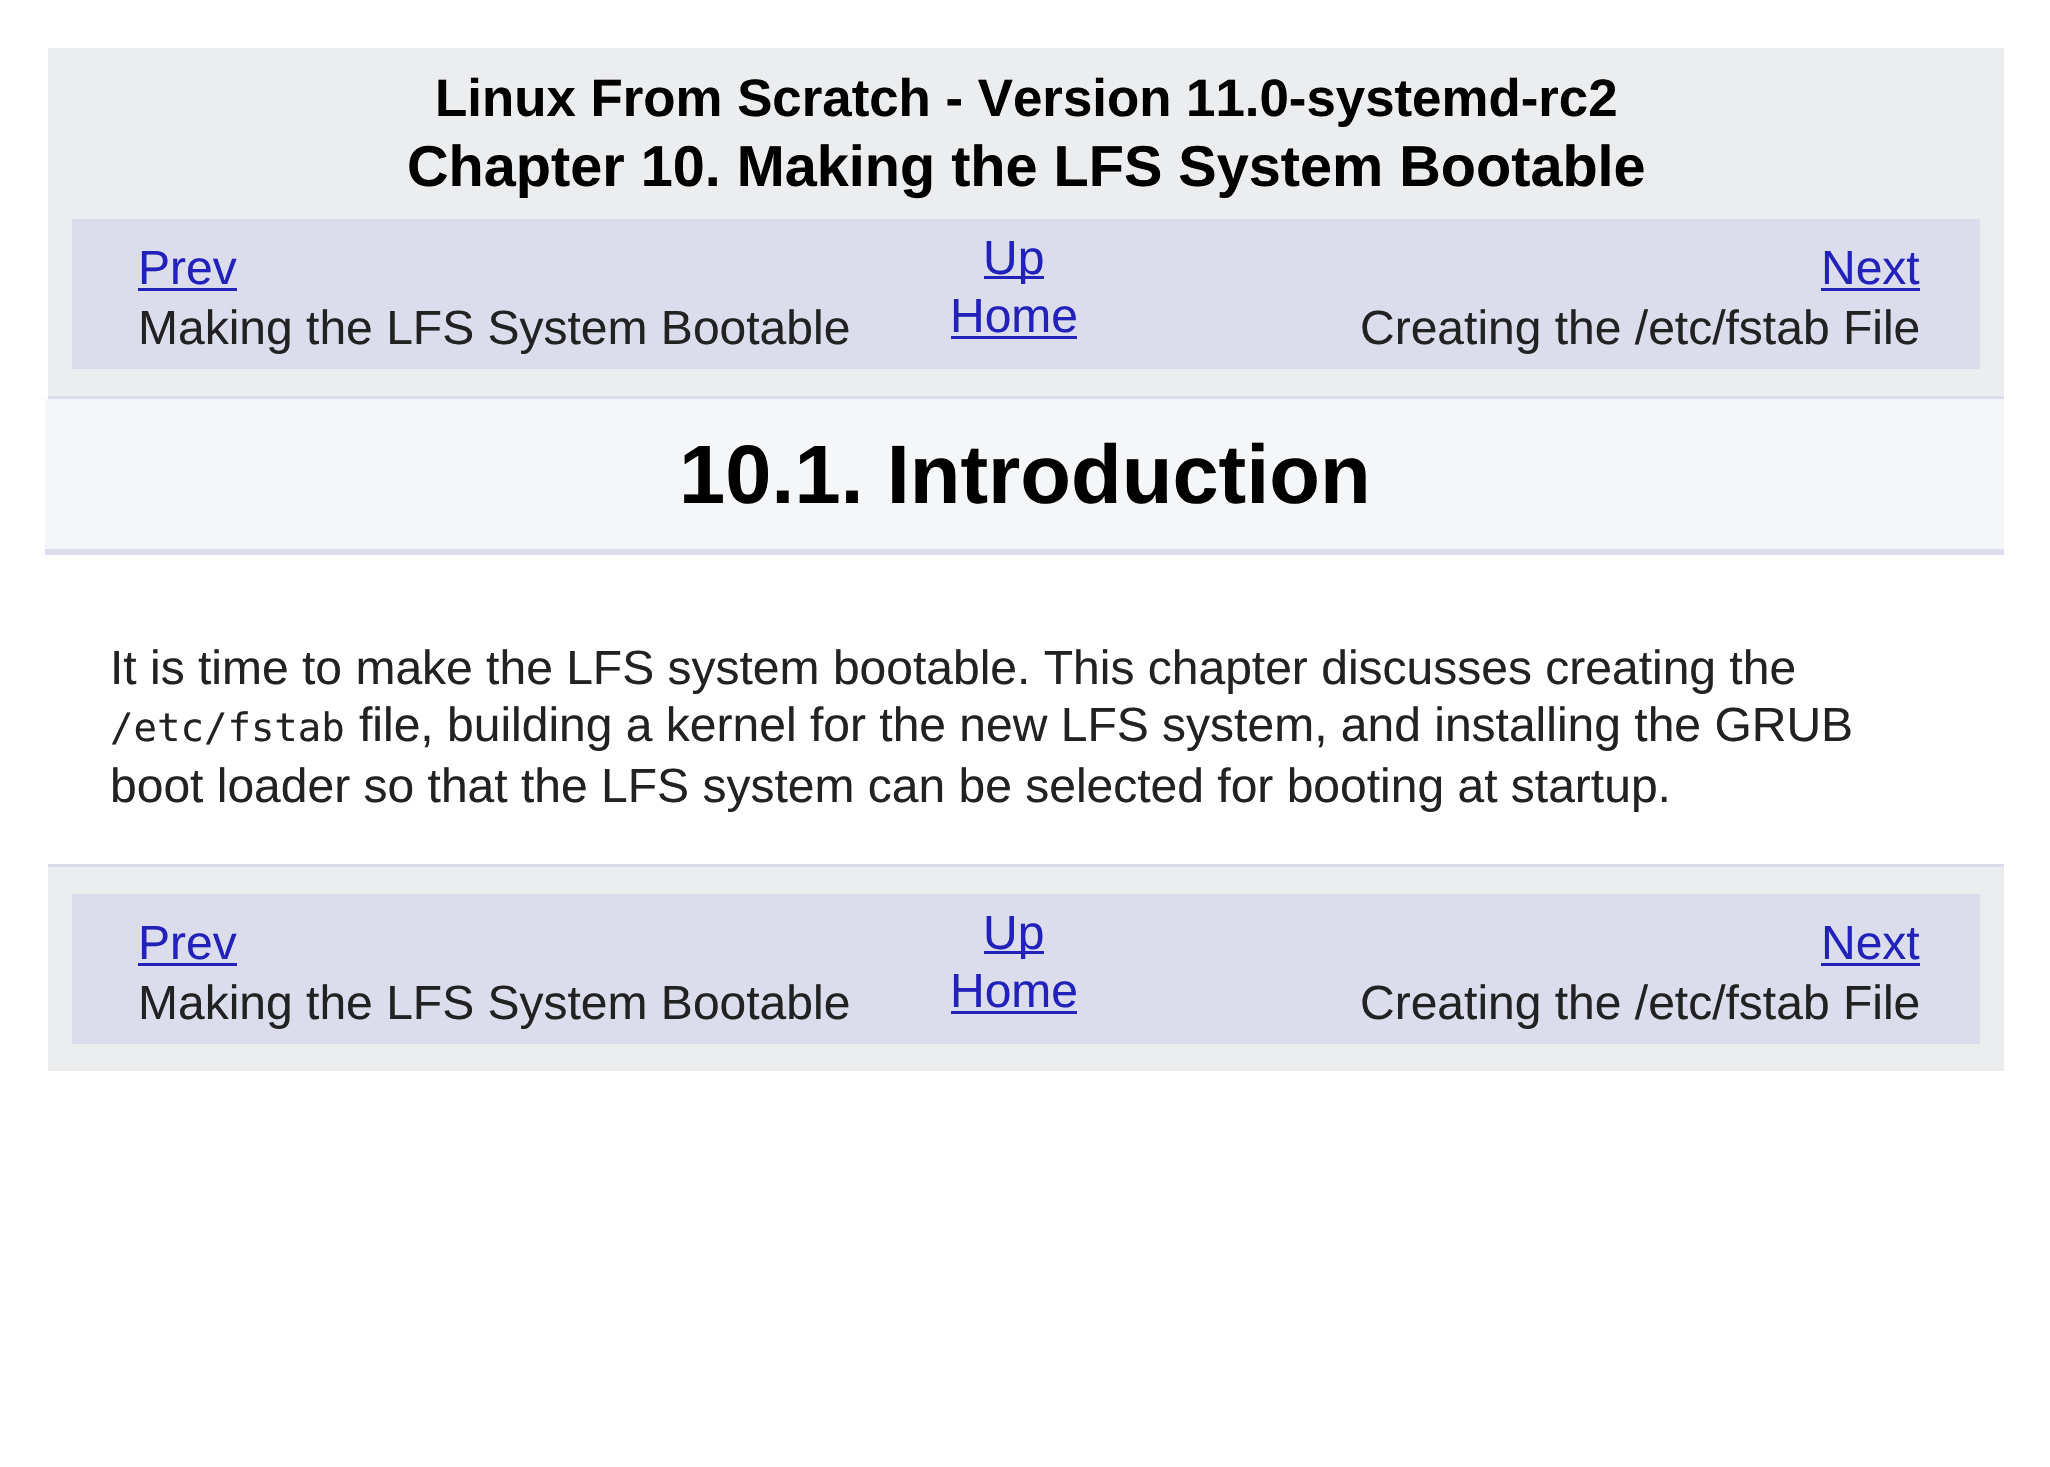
static SkFont makeFont(const char* family, int weight, float size, bool italic = false) {
  SkFontStyle style(weight, SkFontStyle::kNormal_Width,
    italic ? SkFontStyle::kItalic_Slant : SkFontStyle::kUpright_Slant);
  SkFont result(fontMgr->matchFamilyStyle(family, style), size);
  result.setSubpixel(true);
  return result;
}

static void text(SkCanvas* c, const char* s, float x, float y, const SkFont& font, SkColor color) {
  SkPaint ink(SkColor4f::FromColor(color));
  ink.setAntiAlias(true);
  c->drawString(s, x, y, font, ink);
}

static void box(SkCanvas* c, float l, float t, float r, float b, SkColor color) {
  SkPaint ink(SkColor4f::FromColor(color));
  ink.setAntiAlias(true);
  c->drawRect(SkRect::MakeLTRB(l, t, r, b), ink);
}

void draw(SkCanvas* c) {
  SkPaint paint;
  paint.setAntiAlias(true);
  c->clear(0xffffffff);
  box(c, 48, 48, 2004, 396, 0xffecedef);
  box(c, 48, 396, 2004, 399, 0xffdbddec);
  SkFont face1 = makeFont("Liberation Sans", 700, 52.8f);
  text(c, "Linux From Scratch - Version 11.0-systemd-rc2", 435, 116, face1, 0xff000000);
  SkFont face2 = makeFont("Liberation Sans", 700, 57.6f);
  text(c, "Chapter 10. Making the LFS System Bootable", 407, 186, face2, 0xff000000);
  box(c, 72, 219, 1980, 369, 0xffdbddec);
  SkFont face3 = makeFont("Liberation Sans", 400, 48);
  text(c, "Prev", 138, 284, face3, 0xff2222bb);
  box(c, 138, 288, 237, 291, 0xff2222bb);
  text(c, "Making the LFS System Bootable", 138, 344, face3, 0xff222222);
  box(c, 984, 276, 1044, 279, 0xff2222bb);
  text(c, "Up", 983, 274, face3, 0xff2222bb);
  text(c, "Next", 1821, 284, face3, 0xff2222bb);
  box(c, 1821, 288, 1920, 291, 0xff2222bb);
  text(c, "Creating the /etc/fstab File", 1360, 344, face3, 0xff222222);
  text(c, "Home", 950, 332, face3, 0xff2222bb);
  box(c, 951, 336, 1077, 339, 0xff2222bb);
  box(c, 45, 399, 2004, 549, 0xfff5f6f7);
  box(c, 45, 549, 2004, 555, 0xffdbddec);
  SkFont face4 = makeFont("Liberation Sans", 700, 83);
  text(c, "10.1. Introduction", 679, 503, face4, 0xff000000);
  text(c, "It is time to make the LFS system bootable. This chapter discusses creating the", 110, 684, face3, 0xff222222);
  SkFont face5 = makeFont("DejaVu Sans Mono", 400, 39);
  text(c, "/etc/fstab", 110, 741, face5, 0xff222222);
  text(c, "file, building a kernel for the new LFS system, and installing the GRUB", 359, 741, face3, 0xff222222);
  text(c, "boot loader so that the LFS system can be selected for booting at startup.", 110, 802, face3, 0xff222222);
  box(c, 48, 867, 2004, 1071, 0xffecedef);
  box(c, 48, 864, 2004, 867, 0xffdbddec);
  box(c, 72, 894, 1980, 1044, 0xffdbddec);
  text(c, "Prev", 138, 959, face3, 0xff2222bb);
  box(c, 138, 963, 237, 966, 0xff2222bb);
  text(c, "Making the LFS System Bootable", 138, 1019, face3, 0xff222222);
  box(c, 984, 951, 1044, 954, 0xff2222bb);
  text(c, "Up", 983, 949, face3, 0xff2222bb);
  text(c, "Next", 1821, 959, face3, 0xff2222bb);
  box(c, 1821, 963, 1920, 966, 0xff2222bb);
  text(c, "Creating the /etc/fstab File", 1360, 1019, face3, 0xff222222);
  text(c, "Home", 950, 1007, face3, 0xff2222bb);
  box(c, 951, 1011, 1077, 1014, 0xff2222bb);
}
